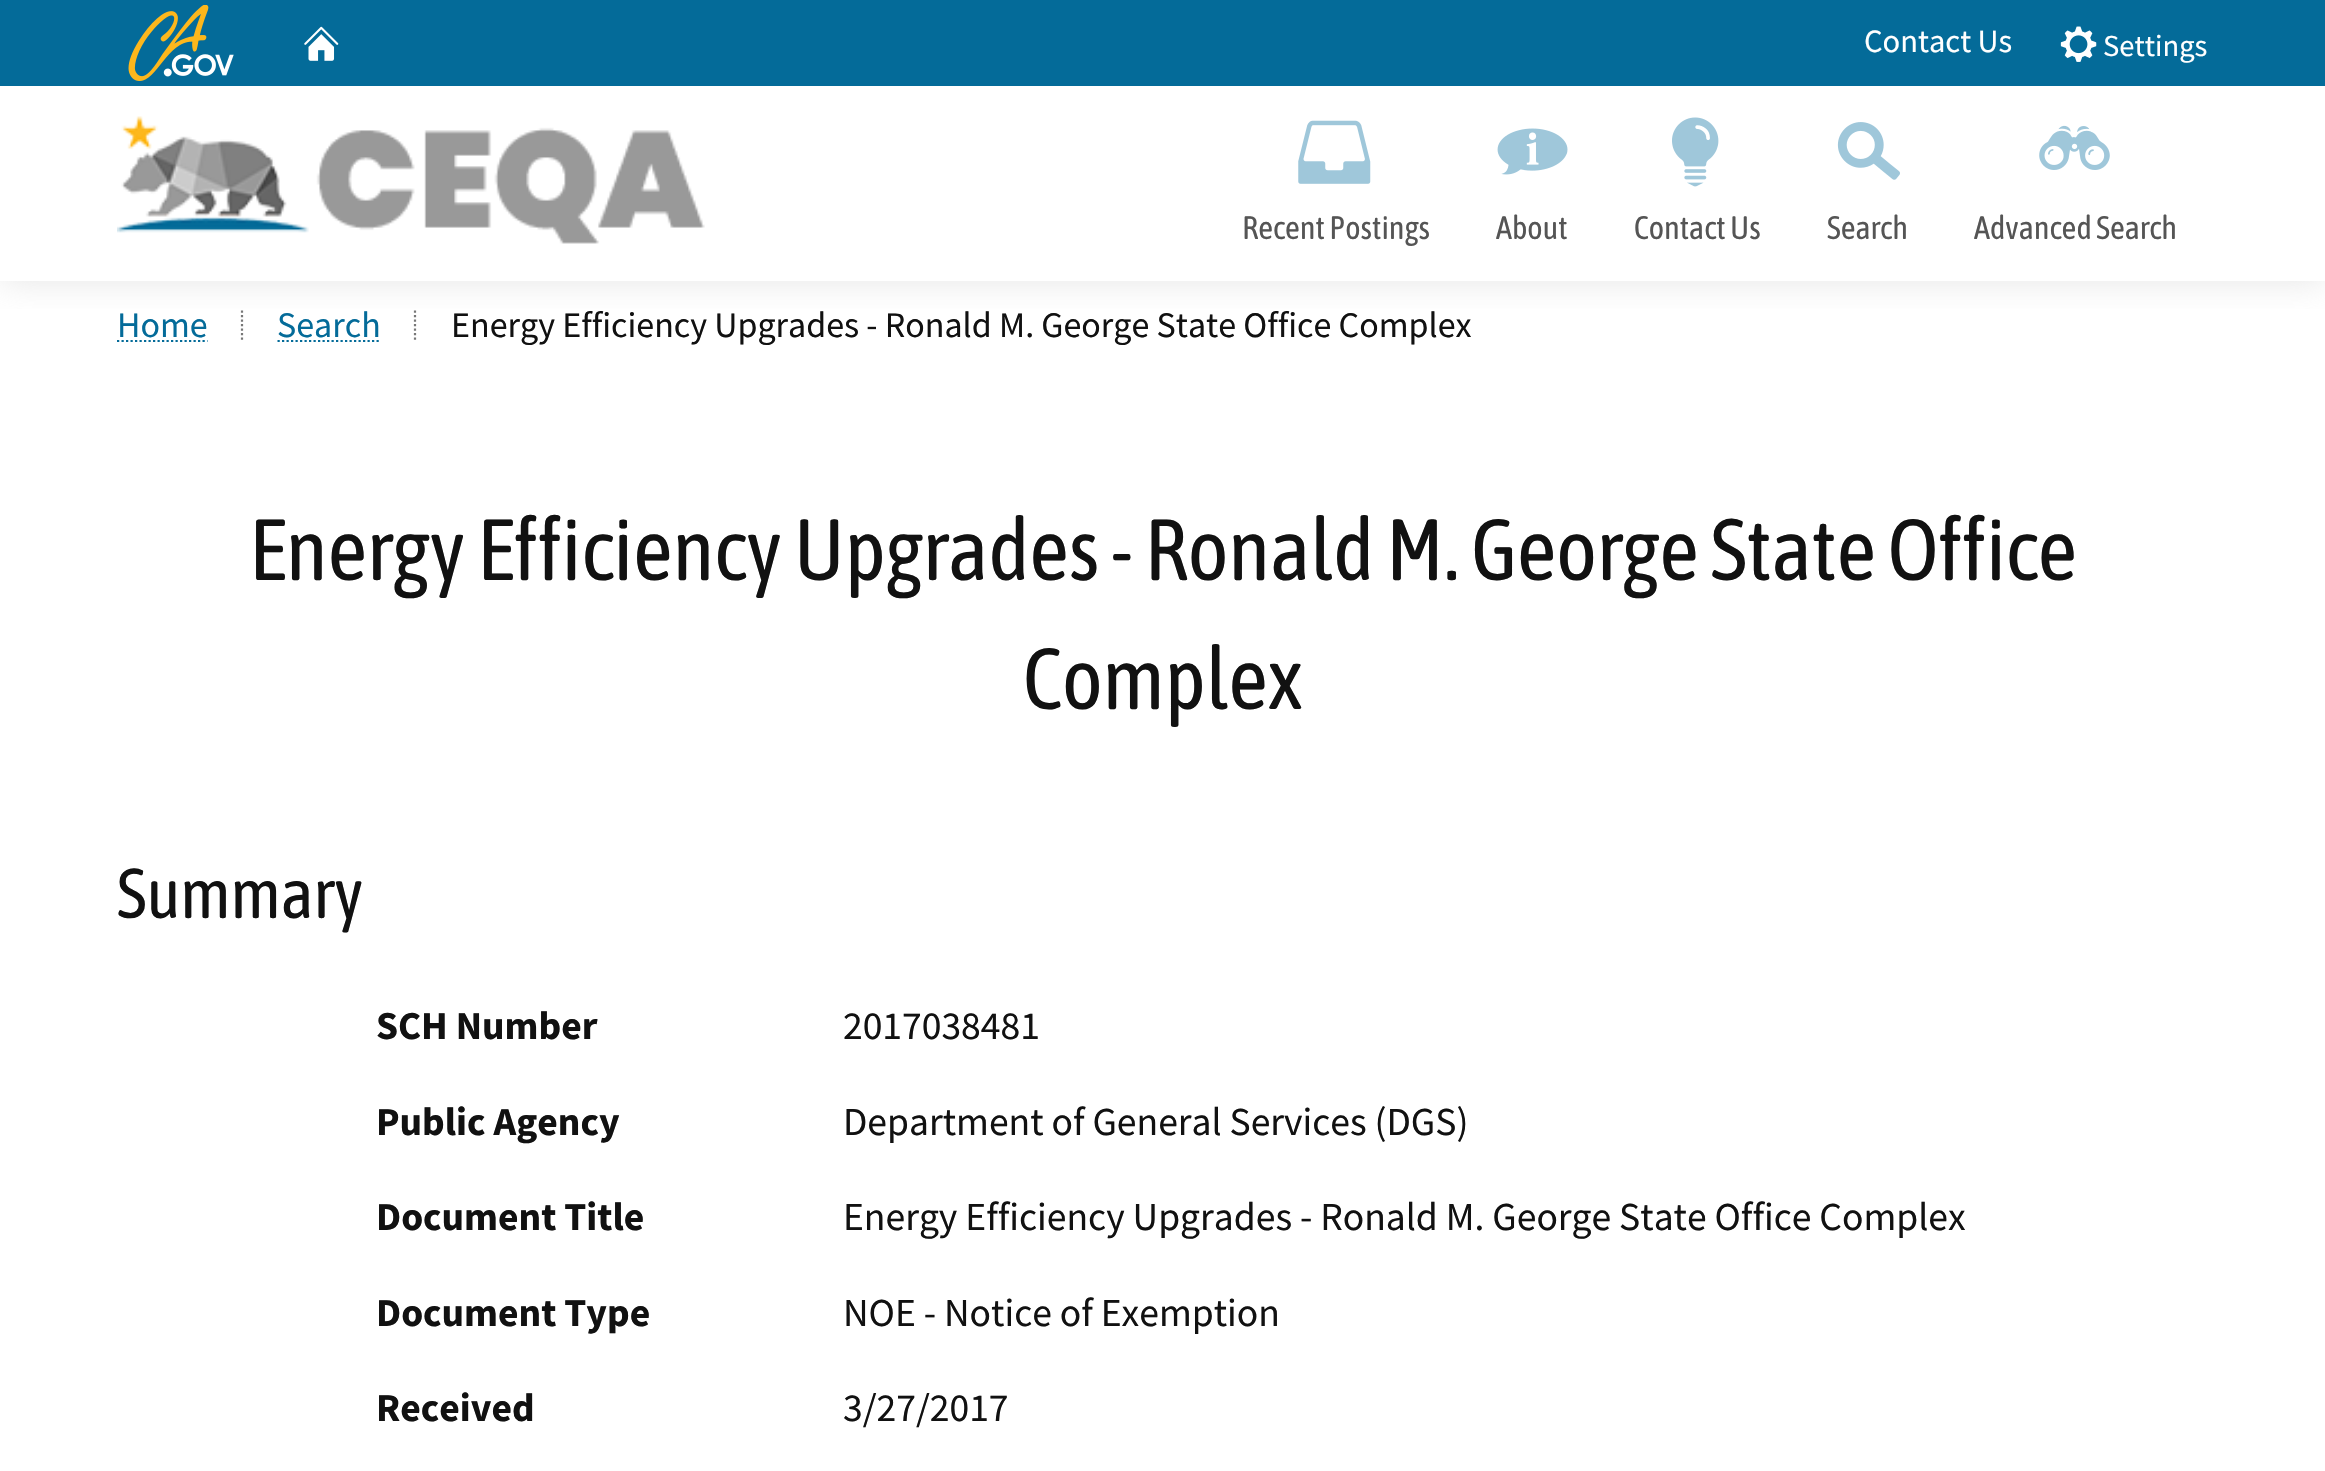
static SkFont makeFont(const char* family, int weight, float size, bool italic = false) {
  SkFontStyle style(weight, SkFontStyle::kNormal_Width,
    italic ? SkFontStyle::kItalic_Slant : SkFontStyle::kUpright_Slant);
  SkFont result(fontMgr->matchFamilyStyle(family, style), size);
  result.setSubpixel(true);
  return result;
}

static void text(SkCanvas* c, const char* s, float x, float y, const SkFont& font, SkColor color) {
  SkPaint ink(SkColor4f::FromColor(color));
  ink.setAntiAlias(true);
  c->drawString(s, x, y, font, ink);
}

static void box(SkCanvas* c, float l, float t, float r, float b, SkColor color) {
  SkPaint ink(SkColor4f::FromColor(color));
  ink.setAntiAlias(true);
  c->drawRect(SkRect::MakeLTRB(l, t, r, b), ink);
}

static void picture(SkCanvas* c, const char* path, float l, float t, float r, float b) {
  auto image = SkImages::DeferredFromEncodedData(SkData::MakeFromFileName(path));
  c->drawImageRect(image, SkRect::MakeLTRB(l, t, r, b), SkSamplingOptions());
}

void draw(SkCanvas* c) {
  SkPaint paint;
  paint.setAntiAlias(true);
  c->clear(0xffffffff);
  paint.setStyle(SkPaint::kStroke_Style);
  paint.setStrokeWidth(2.2f);
  paint.setColor(0xff777777);
  paint.setPathEffect(SkDashPathEffect::Make({{2.25f, 2.25f}}, 0));
  c->drawPath(SkPathBuilder().moveTo(242, 310.5f).lineTo(242, 340).detach(), paint);
  paint.setPathEffect(nullptr);
  paint.setPathEffect(SkDashPathEffect::Make({{2.25f, 2.25f}}, 0));
  c->drawPath(SkPathBuilder().moveTo(415, 310.5f).lineTo(415, 340).detach(), paint);
  paint.setPathEffect(nullptr);
  c->save();
  c->clipRect(SkRect::MakeLTRB(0, 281, 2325, 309));
  paint.setStyle(SkPaint::kFill_Style);
  paint.setColor(0x66bdbdbd);
  paint.setMaskFilter(SkMaskFilter::MakeBlur(kNormal_SkBlurStyle, 17));
  c->drawRect(SkRect::MakeLTRB(0, 0, 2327, 281), paint);
  paint.setMaskFilter(nullptr);
  c->restore();
  box(c, 0, 0, 2325, 86, 0xff046b99);
  picture(c, "img_01.png", 128, 5, 234, 81);
  picture(c, "img_02.png", 304, 26, 339, 61);
  SkFont face1 = makeFont("Source Sans Pro", 400, 32.5f);
  text(c, "Contact Us", 1864, 52, face1, 0xffffffff);
  picture(c, "img_03.png", 2060, 26, 2097, 62);
  SkFont face2 = makeFont("Source Sans Pro", 400, 30.5f);
  text(c, "Settings", 2103, 56, face2, 0xffffffff);
  picture(c, "img_04.png", 117, 116, 705, 244);
  picture(c, "img_05.png", 1298, 120, 1371, 184);
  SkFont face3 = makeFont("Asap Condensed", 400, 32.5f);
  text(c, "Recent Postings", 1242, 239, face3, 0xff555555);
  picture(c, "img_06.png", 1497, 128, 1568, 175);
  text(c, "About", 1496, 239, face3, 0xff555555);
  picture(c, "img_07.png", 1672, 117, 1719, 187);
  text(c, "Contact Us", 1634, 239, face3, 0xff555555);
  picture(c, "img_08.png", 1837, 122, 1900, 180);
  text(c, "Search", 1827, 239, face3, 0xff555555);
  picture(c, "img_09.png", 2039, 125, 2110, 170);
  text(c, "Advanced Search", 1974, 239, face3, 0xff555555);
  SkFont face4 = makeFont("Source Sans Pro", 400, 36);
  text(c, "Home", 117, 337, face4, 0xff046b99);
  paint.setStyle(SkPaint::kStroke_Style);
  paint.setColor(0xff046b99);
  paint.setPathEffect(SkDashPathEffect::Make({{2.25f, 2.25f}}, 0));
  c->drawPath(SkPathBuilder().moveTo(117, 341).lineTo(207.5f, 341).detach(), paint);
  paint.setPathEffect(nullptr);
  text(c, "Search", 277, 337, face4, 0xff046b99);
  paint.setPathEffect(SkDashPathEffect::Make({{2.25f, 2.25f}}, 0));
  c->drawPath(SkPathBuilder().moveTo(277.5f, 341).lineTo(381, 341).detach(), paint);
  paint.setPathEffect(nullptr);
  text(c, "Energy Efficiency Upgrades - Ronald M. George State Office Complex", 451, 337, face4, 0xff111111);
  SkFont face5 = makeFont("Asap Condensed", 400, 86.4f);
  text(c, "Energy Efficiency Upgrades - Ronald M. George State Office", 249, 580, face5, 0xff111111);
  text(c, "Complex", 1023, 709, face5, 0xff111111);
  SkFont face6 = makeFont("Asap Condensed", 400, 70);
  text(c, "Summary", 117, 918, face6, 0xff111111);
  SkFont face7 = makeFont("Source Sans Pro", 700, 39.6f);
  text(c, "SCH Number", 376, 1039, face7, 0xff111111);
  SkFont face8 = makeFont("Source Sans Pro", 400, 39.6f);
  text(c, "2017038481", 843, 1039, face8, 0xff111111);
  text(c, "Public Agency", 376, 1135, face7, 0xff111111);
  text(c, "Department of General Services (DGS)", 843, 1135, face8, 0xff111111);
  text(c, "Document Title", 376, 1230, face7, 0xff111111);
  text(c, "Energy Efficiency Upgrades - Ronald M. George State Office Complex", 843, 1230, face8, 0xff111111);
  text(c, "Document Type", 376, 1326, face7, 0xff111111);
  text(c, "NOE - Notice of Exemption", 843, 1326, face8, 0xff111111);
  text(c, "Received", 376, 1421, face7, 0xff111111);
  text(c, "3/27/2017", 843, 1421, face8, 0xff111111);
}
